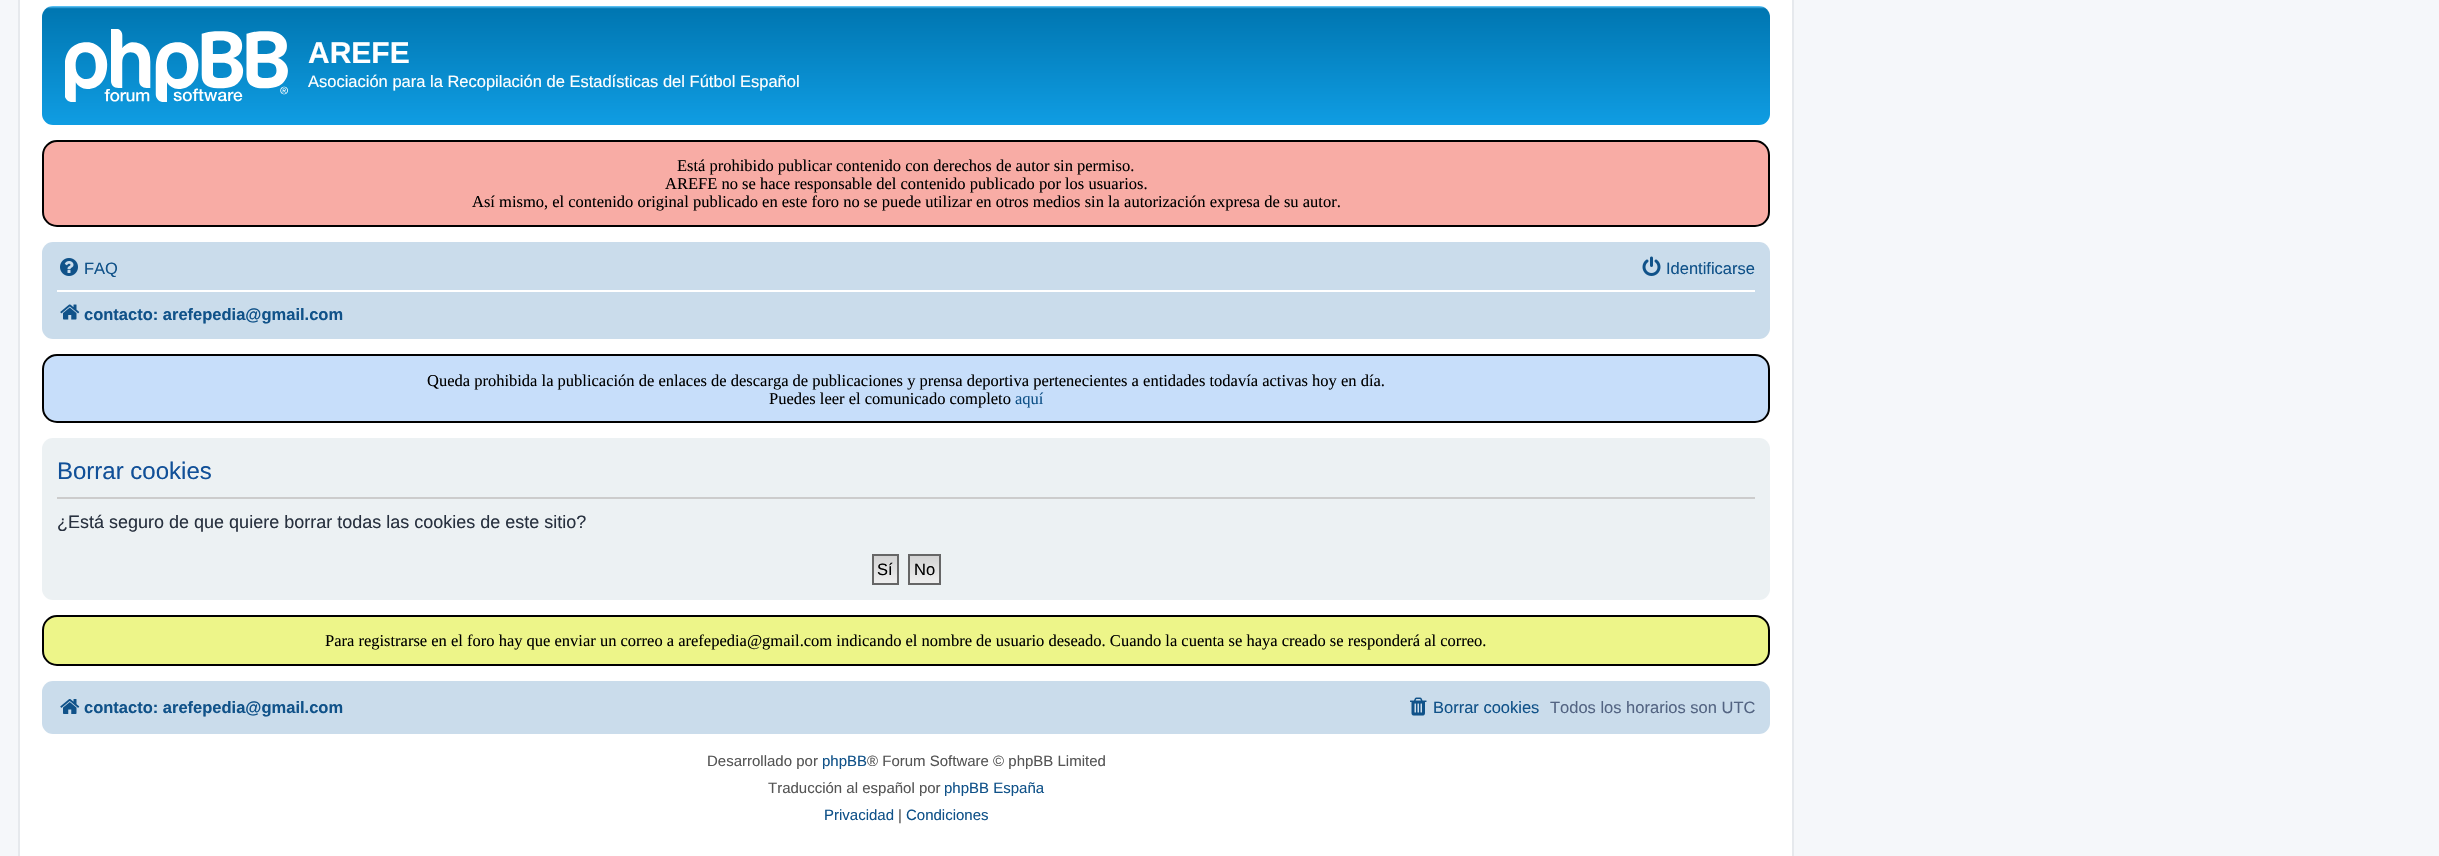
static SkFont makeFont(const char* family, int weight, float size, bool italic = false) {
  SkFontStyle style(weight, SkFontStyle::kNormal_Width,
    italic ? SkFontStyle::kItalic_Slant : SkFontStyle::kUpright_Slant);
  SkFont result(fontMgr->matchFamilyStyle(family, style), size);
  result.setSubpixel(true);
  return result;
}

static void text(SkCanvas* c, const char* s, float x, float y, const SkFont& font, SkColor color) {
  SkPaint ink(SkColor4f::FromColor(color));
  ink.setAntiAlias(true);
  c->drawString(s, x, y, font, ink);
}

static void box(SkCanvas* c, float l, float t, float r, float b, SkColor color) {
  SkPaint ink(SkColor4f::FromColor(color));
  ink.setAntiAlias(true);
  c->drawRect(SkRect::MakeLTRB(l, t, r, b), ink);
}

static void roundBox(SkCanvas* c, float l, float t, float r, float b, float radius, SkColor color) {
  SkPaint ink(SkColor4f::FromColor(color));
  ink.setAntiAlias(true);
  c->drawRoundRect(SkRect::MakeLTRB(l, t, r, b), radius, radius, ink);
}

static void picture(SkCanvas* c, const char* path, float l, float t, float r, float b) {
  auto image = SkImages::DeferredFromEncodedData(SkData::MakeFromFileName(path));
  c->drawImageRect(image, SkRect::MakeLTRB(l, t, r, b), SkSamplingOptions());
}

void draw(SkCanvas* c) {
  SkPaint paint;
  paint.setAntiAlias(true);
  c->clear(0xfff5f7fa);
  paint.setColor(0xffffffff);
  c->drawRect(SkRect::MakeLTRB(19, -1, 1793, 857), paint);
  paint.setStyle(SkPaint::kStroke_Style);
  paint.setStrokeWidth(2);
  paint.setColor(0xffe6e9ed);
  c->drawRect(SkRect::MakeLTRB(19, -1, 1793, 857), paint);
  paint.setStyle(SkPaint::kFill_Style);
  {
    const SkColor colors[] = {0xff6aceff, 0xff0076b1, 0xff12a3eb};
    const float stops[] = {0, 0.02f, 1};
    const SkPoint ends[] = {{906, 6}, {906, 144}};
    paint.setShader(SkGradientShader::MakeLinear(ends, colors, stops, 3, SkTileMode::kClamp));
    paint.setAlpha(255);
  }
  c->drawRoundRect(SkRect::MakeLTRB(42, 6, 1770, 125), 11, 11, paint);
  picture(c, "img_01.png", 65, 29, 288, 102);
  SkFont face1 = makeFont("Liberation Sans", 700, 30);
  text(c, "AREFE", 308, 63, face1, 0xffffffff);
  SkFont face2 = makeFont("Liberation Sans", 400, 16.5f);
  text(c, "Asociación para la Recopilación de Estadísticas del Fútbol Español", 308, 87, face2, 0xffffffff);
  paint.setShader(nullptr);
  paint.setColor(0xfff8aca5);
  c->drawRoundRect(SkRect::MakeLTRB(43, 141, 1769, 226), 14, 14, paint);
  paint.setStyle(SkPaint::kStroke_Style);
  paint.setColor(0xff000000);
  c->drawRoundRect(SkRect::MakeLTRB(43, 141, 1769, 226), 14, 14, paint);
  SkFont face3 = makeFont("Liberation Serif", 400, 16.5f);
  text(c, "Está prohibido publicar contenido con derechos de autor sin permiso.", 677, 171, face3, 0xff000000);
  text(c, "AREFE no se hace responsable del contenido publicado por los usuarios.", 665, 189, face3, 0xff000000);
  text(c, "Así mismo, el contenido original publicado en este foro no se puede utilizar en otros medios sin la autorización expresa de su autor.", 472, 207, face3, 0xff000000);
  roundBox(c, 42, 242, 1770, 339, 11, 0xffcadceb);
  picture(c, "img_02.png", 60, 258, 78, 276);
  text(c, "FAQ", 84, 274, face2, 0xff105289);
  picture(c, "img_03.png", 1642, 256, 1661, 276);
  text(c, "Identificarse", 1666, 274, face2, 0xff105289);
  box(c, 57, 290, 1755, 292, 0xffffffff);
  picture(c, "img_04.png", 60, 304, 80, 320);
  SkFont face4 = makeFont("Liberation Sans", 700, 16.5f);
  text(c, "contacto: arefepedia@gmail.com", 84, 320, face4, 0xff105289);
  paint.setStyle(SkPaint::kFill_Style);
  paint.setColor(0xffc7defa);
  c->drawRoundRect(SkRect::MakeLTRB(43, 355, 1769, 422), 14, 14, paint);
  paint.setStyle(SkPaint::kStroke_Style);
  paint.setColor(0xff000000);
  c->drawRoundRect(SkRect::MakeLTRB(43, 355, 1769, 422), 14, 14, paint);
  text(c, "Queda prohibida la publicación de enlaces de descarga de publicaciones y prensa deportiva pertenecientes a entidades todavía activas hoy en día.", 427, 386, face3, 0xff000000);
  text(c, "Puedes leer el comunicado completo", 769, 404, face3, 0xff000000);
  text(c, "aquí", 1015, 404, face3, 0xff105289);
  roundBox(c, 42, 438, 1770, 600, 11, 0xffecf1f3);
  box(c, 57, 497, 1755, 499, 0xffcccccc);
  SkFont face5 = makeFont("Liberation Sans", 400, 24);
  text(c, "Borrar cookies", 57, 479, face5, 0xff115098);
  SkFont face6 = makeFont("Liberation Sans", 400, 18);
  text(c, "¿Está seguro de que quiere borrar todas las cookies de este sitio?", 57, 528, face6, 0xff28313f);
  paint.setStyle(SkPaint::kFill_Style);
  {
    const SkColor colors[] = {0xffd2d2d2, 0xffefefef};
    const float stops[] = {0, 1};
    const SkPoint ends[] = {{885, 555}, {885, 584}};
    paint.setShader(SkGradientShader::MakeLinear(ends, colors, stops, 2, SkTileMode::kClamp));
    paint.setAlpha(255);
  }
  c->drawRect(SkRect::MakeLTRB(874, 556, 897, 583), paint);
  paint.setStyle(SkPaint::kStroke_Style);
  paint.setShader(nullptr);
  paint.setColor(0xff666666);
  c->drawRect(SkRect::MakeLTRB(873, 555, 898, 584), paint);
  text(c, "Sí", 877, 575, face2, 0xff000000);
  paint.setStyle(SkPaint::kFill_Style);
  {
    const SkColor colors[] = {0xffd2d2d2, 0xffefefef};
    const float stops[] = {0, 1};
    const SkPoint ends[] = {{924, 555}, {924, 584}};
    paint.setShader(SkGradientShader::MakeLinear(ends, colors, stops, 2, SkTileMode::kClamp));
    paint.setAlpha(255);
  }
  c->drawRect(SkRect::MakeLTRB(910, 556, 939, 583), paint);
  paint.setStyle(SkPaint::kStroke_Style);
  paint.setShader(nullptr);
  paint.setColor(0xff666666);
  c->drawRect(SkRect::MakeLTRB(909, 555, 940, 584), paint);
  text(c, "No", 914, 575, face2, 0xff000000);
  paint.setStyle(SkPaint::kFill_Style);
  paint.setColor(0xffedf589);
  c->drawRoundRect(SkRect::MakeLTRB(43, 616, 1769, 665), 14, 14, paint);
  paint.setStyle(SkPaint::kStroke_Style);
  paint.setColor(0xff000000);
  c->drawRoundRect(SkRect::MakeLTRB(43, 616, 1769, 665), 14, 14, paint);
  text(c, "Para registrarse en el foro hay que enviar un correo a arefepedia@gmail.com indicando el nombre de usuario deseado. Cuando la cuenta se haya creado se responderá al correo.", 325, 646, face3, 0xff000000);
  roundBox(c, 42, 681, 1770, 734, 11, 0xffcadceb);
  picture(c, "img_05.png", 60, 699, 80, 714);
  text(c, "contacto: arefepedia@gmail.com", 84, 713, face4, 0xff105289);
  picture(c, "img_06.png", 1410, 697, 1427, 716);
  text(c, "Borrar cookies", 1433, 713, face2, 0xff105289);
  text(c, "Todos los horarios son UTC", 1550, 713, face2, 0xff536482);
  SkFont face7 = makeFont("Liberation Sans", 400, 15);
  text(c, "Desarrollado por", 707, 766, face7, 0xff555555);
  text(c, "phpBB", 822, 766, face7, 0xff105289);
  text(c, "® Forum Software © phpBB Limited", 867, 766, face7, 0xff555555);
  text(c, "Traducción al español por", 768, 793, face7, 0xff555555);
  text(c, "phpBB España", 944, 793, face7, 0xff105289);
  text(c, "Privacidad", 824, 820, face7, 0xff105289);
  text(c, "|", 898, 820, face7, 0xff555555);
  text(c, "Condiciones", 906, 820, face7, 0xff105289);
}
